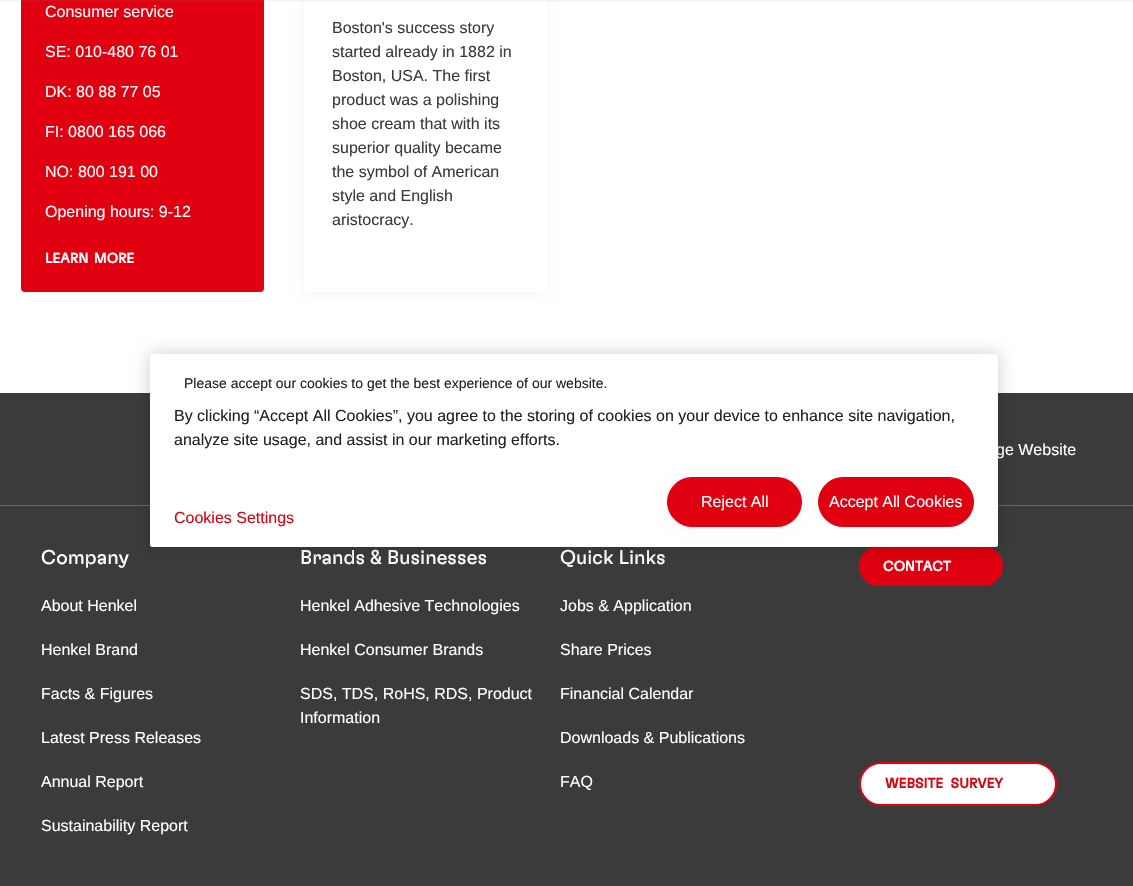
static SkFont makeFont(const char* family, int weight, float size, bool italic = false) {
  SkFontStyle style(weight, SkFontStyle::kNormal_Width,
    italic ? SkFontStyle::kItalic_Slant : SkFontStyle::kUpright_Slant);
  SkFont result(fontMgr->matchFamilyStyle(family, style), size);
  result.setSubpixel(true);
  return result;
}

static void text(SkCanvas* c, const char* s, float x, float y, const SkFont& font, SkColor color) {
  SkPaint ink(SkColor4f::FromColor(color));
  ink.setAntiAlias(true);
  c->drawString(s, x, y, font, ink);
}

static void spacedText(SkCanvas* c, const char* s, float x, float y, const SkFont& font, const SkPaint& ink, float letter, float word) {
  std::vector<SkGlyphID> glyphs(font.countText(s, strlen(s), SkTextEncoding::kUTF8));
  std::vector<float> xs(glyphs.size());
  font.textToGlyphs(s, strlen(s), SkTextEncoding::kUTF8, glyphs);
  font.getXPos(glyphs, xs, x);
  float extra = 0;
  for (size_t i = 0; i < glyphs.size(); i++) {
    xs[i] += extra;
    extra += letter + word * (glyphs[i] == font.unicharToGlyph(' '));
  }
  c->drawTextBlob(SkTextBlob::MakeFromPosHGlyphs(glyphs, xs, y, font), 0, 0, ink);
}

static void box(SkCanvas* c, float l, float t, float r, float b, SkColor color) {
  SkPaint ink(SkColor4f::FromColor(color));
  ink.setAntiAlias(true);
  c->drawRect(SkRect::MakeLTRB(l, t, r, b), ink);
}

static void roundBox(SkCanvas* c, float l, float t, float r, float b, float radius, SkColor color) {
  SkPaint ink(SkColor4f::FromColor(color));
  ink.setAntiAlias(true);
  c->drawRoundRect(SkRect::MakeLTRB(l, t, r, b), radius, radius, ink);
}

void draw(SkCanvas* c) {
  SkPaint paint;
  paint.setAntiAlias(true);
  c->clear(0xffffffff);
  roundBox(c, 21, -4, 264, 292, 4, 0xffe1000f);
  paint.setColor(0x0a000000);
  paint.setMaskFilter(SkMaskFilter::MakeBlur(kNormal_SkBlurStyle, 6));
  c->drawRoundRect(SkRect::MakeLTRB(304, -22, 547, 294), 4, 4, paint);
  paint.setMaskFilter(nullptr);
  roundBox(c, 304, -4, 547, 292, 4, 0xffffffff);
  paint.setColor(0x26788791);
  paint.setMaskFilter(SkMaskFilter::MakeBlur(kNormal_SkBlurStyle, 1));
  c->drawRect(SkRect::MakeLTRB(0, -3, 1133, 1), paint);
  paint.setMaskFilter(nullptr);
  SkFont face1 = makeFont("Liberation Sans", 400, 16);
  text(c, "Consumer service", 45, 17, face1, 0xffffffff);
  text(c, "SE: 010-480 76 01", 45, 57, face1, 0xffffffff);
  text(c, "DK: 80 88 77 05", 45, 97, face1, 0xffffffff);
  text(c, "FI: 0800 165 066", 45, 137, face1, 0xffffffff);
  text(c, "NO: 800 191 00", 45, 177, face1, 0xffffffff);
  text(c, "Opening hours: 9-12", 45, 217, face1, 0xffffffff);
  SkFont face2 = makeFont("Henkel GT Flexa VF", 700, 14);
  paint.setColor(0xffffffff);
  spacedText(c, "LEARN MORE", 45, 263, face2, paint, 0, 2);
  text(c, "Boston's success story", 332, 33, face1, 0xff3b3b3b);
  text(c, "started already in 1882 in", 332, 57, face1, 0xff3b3b3b);
  text(c, "Boston, USA. The first", 332, 81, face1, 0xff3b3b3b);
  text(c, "product was a polishing", 332, 105, face1, 0xff3b3b3b);
  text(c, "shoe cream that with its", 332, 129, face1, 0xff3b3b3b);
  text(c, "superior quality became", 332, 153, face1, 0xff3b3b3b);
  text(c, "the symbol of American", 332, 177, face1, 0xff3b3b3b);
  text(c, "style and English", 332, 201, face1, 0xff3b3b3b);
  text(c, "aristocracy.", 332, 225, face1, 0xff3b3b3b);
  box(c, 0, 393, 1133, 886, 0xff3b3b3b);
  text(c, "ge Website", 996, 455, face1, 0xffffffff);
  box(c, 0, 505, 1133, 506, 0xff696969);
  SkFont face3 = makeFont("Henkel GT Flexa VF", 400, 20);
  text(c, "Company", 41, 564, face3, 0xffffffff);
  text(c, "About Henkel", 41, 611, face1, 0xffffffff);
  text(c, "Henkel Brand", 41, 655, face1, 0xffffffff);
  text(c, "Facts & Figures", 41, 699, face1, 0xffffffff);
  text(c, "Latest Press Releases", 41, 743, face1, 0xffffffff);
  text(c, "Annual Report", 41, 787, face1, 0xffffffff);
  text(c, "Sustainability Report", 41, 831, face1, 0xffffffff);
  text(c, "Brands & Businesses", 300, 564, face3, 0xffffffff);
  text(c, "Henkel Adhesive Technologies", 300, 611, face1, 0xffffffff);
  text(c, "Henkel Consumer Brands", 300, 655, face1, 0xffffffff);
  text(c, "SDS, TDS, RoHS, RDS, Product", 300, 699, face1, 0xffffffff);
  text(c, "Information", 300, 723, face1, 0xffffffff);
  text(c, "Quick Links", 560, 564, face3, 0xffffffff);
  text(c, "Jobs & Application", 560, 611, face1, 0xffffffff);
  text(c, "Share Prices", 560, 655, face1, 0xffffffff);
  text(c, "Financial Calendar", 560, 699, face1, 0xffffffff);
  text(c, "Downloads & Publications", 560, 743, face1, 0xffffffff);
  text(c, "FAQ", 560, 787, face1, 0xffffffff);
  paint.setColor(0xffe1000f);
  c->drawRoundRect(SkRect::MakeLTRB(860, 547, 1002, 585), 19, 19, paint);
  paint.setStyle(SkPaint::kStroke_Style);
  paint.setStrokeWidth(2);
  c->drawRoundRect(SkRect::MakeLTRB(860, 547, 1002, 585), 19, 19, paint);
  text(c, "CONTACT", 883, 571, face2, 0xffffffff);
  paint.setStyle(SkPaint::kFill_Style);
  paint.setColor(0xffffffff);
  c->drawRoundRect(SkRect::MakeLTRB(860, 763, 1056, 805), 21, 21, paint);
  paint.setStyle(SkPaint::kStroke_Style);
  paint.setColor(0xffe1000f);
  c->drawRoundRect(SkRect::MakeLTRB(860, 763, 1056, 805), 21, 21, paint);
  paint.setStyle(SkPaint::kFill_Style);
  spacedText(c, "WEBSITE SURVEY", 885, 788, face2, paint, 0, 4);
  paint.setColor(0x33000000);
  paint.setMaskFilter(SkMaskFilter::MakeBlur(kNormal_SkBlurStyle, 9));
  c->drawRoundRect(SkRect::MakeLTRB(150, 354, 998, 547), 2.5f, 2.5f, paint);
  paint.setMaskFilter(nullptr);
  roundBox(c, 150, 354, 998, 547, 2.5f, 0xffffffff);
  SkFont face4 = makeFont("Liberation Sans", 400, 14);
  text(c, "Please accept our cookies to get the best experience of our website.", 184, 388, face4, 0xff222222);
  text(c, "By clicking “Accept All Cookies”, you agree to the storing of cookies on your device to enhance site navigation,", 174, 421, face1, 0xff222222);
  text(c, "analyze site usage, and assist in our marketing efforts.", 174, 445, face1, 0xff222222);
  paint.setColor(0x0a000000);
  paint.setMaskFilter(SkMaskFilter::MakeBlur(kNormal_SkBlurStyle, 6));
  c->drawRoundRect(SkRect::MakeLTRB(667, 479, 802, 529), 25, 25, paint);
  paint.setMaskFilter(nullptr);
  paint.setColor(0xffe1000f);
  c->drawRoundRect(SkRect::MakeLTRB(667.5f, 477.5f, 801.5f, 526.5f), 24.5f, 24.5f, paint);
  paint.setStyle(SkPaint::kStroke_Style);
  paint.setStrokeWidth(1);
  c->drawRoundRect(SkRect::MakeLTRB(667.5f, 477.5f, 801.5f, 526.5f), 24.5f, 24.5f, paint);
  text(c, "Reject All", 701, 507, face1, 0xffffffff);
  paint.setStyle(SkPaint::kFill_Style);
  c->drawRoundRect(SkRect::MakeLTRB(818.5f, 477.5f, 973.5f, 526.5f), 24.5f, 24.5f, paint);
  paint.setStyle(SkPaint::kStroke_Style);
  c->drawRoundRect(SkRect::MakeLTRB(818.5f, 477.5f, 973.5f, 526.5f), 24.5f, 24.5f, paint);
  text(c, "Accept All Cookies", 829, 507, face1, 0xffffffff);
  text(c, "Cookies Settings", 174, 523, face1, 0xffe1000f);
}
